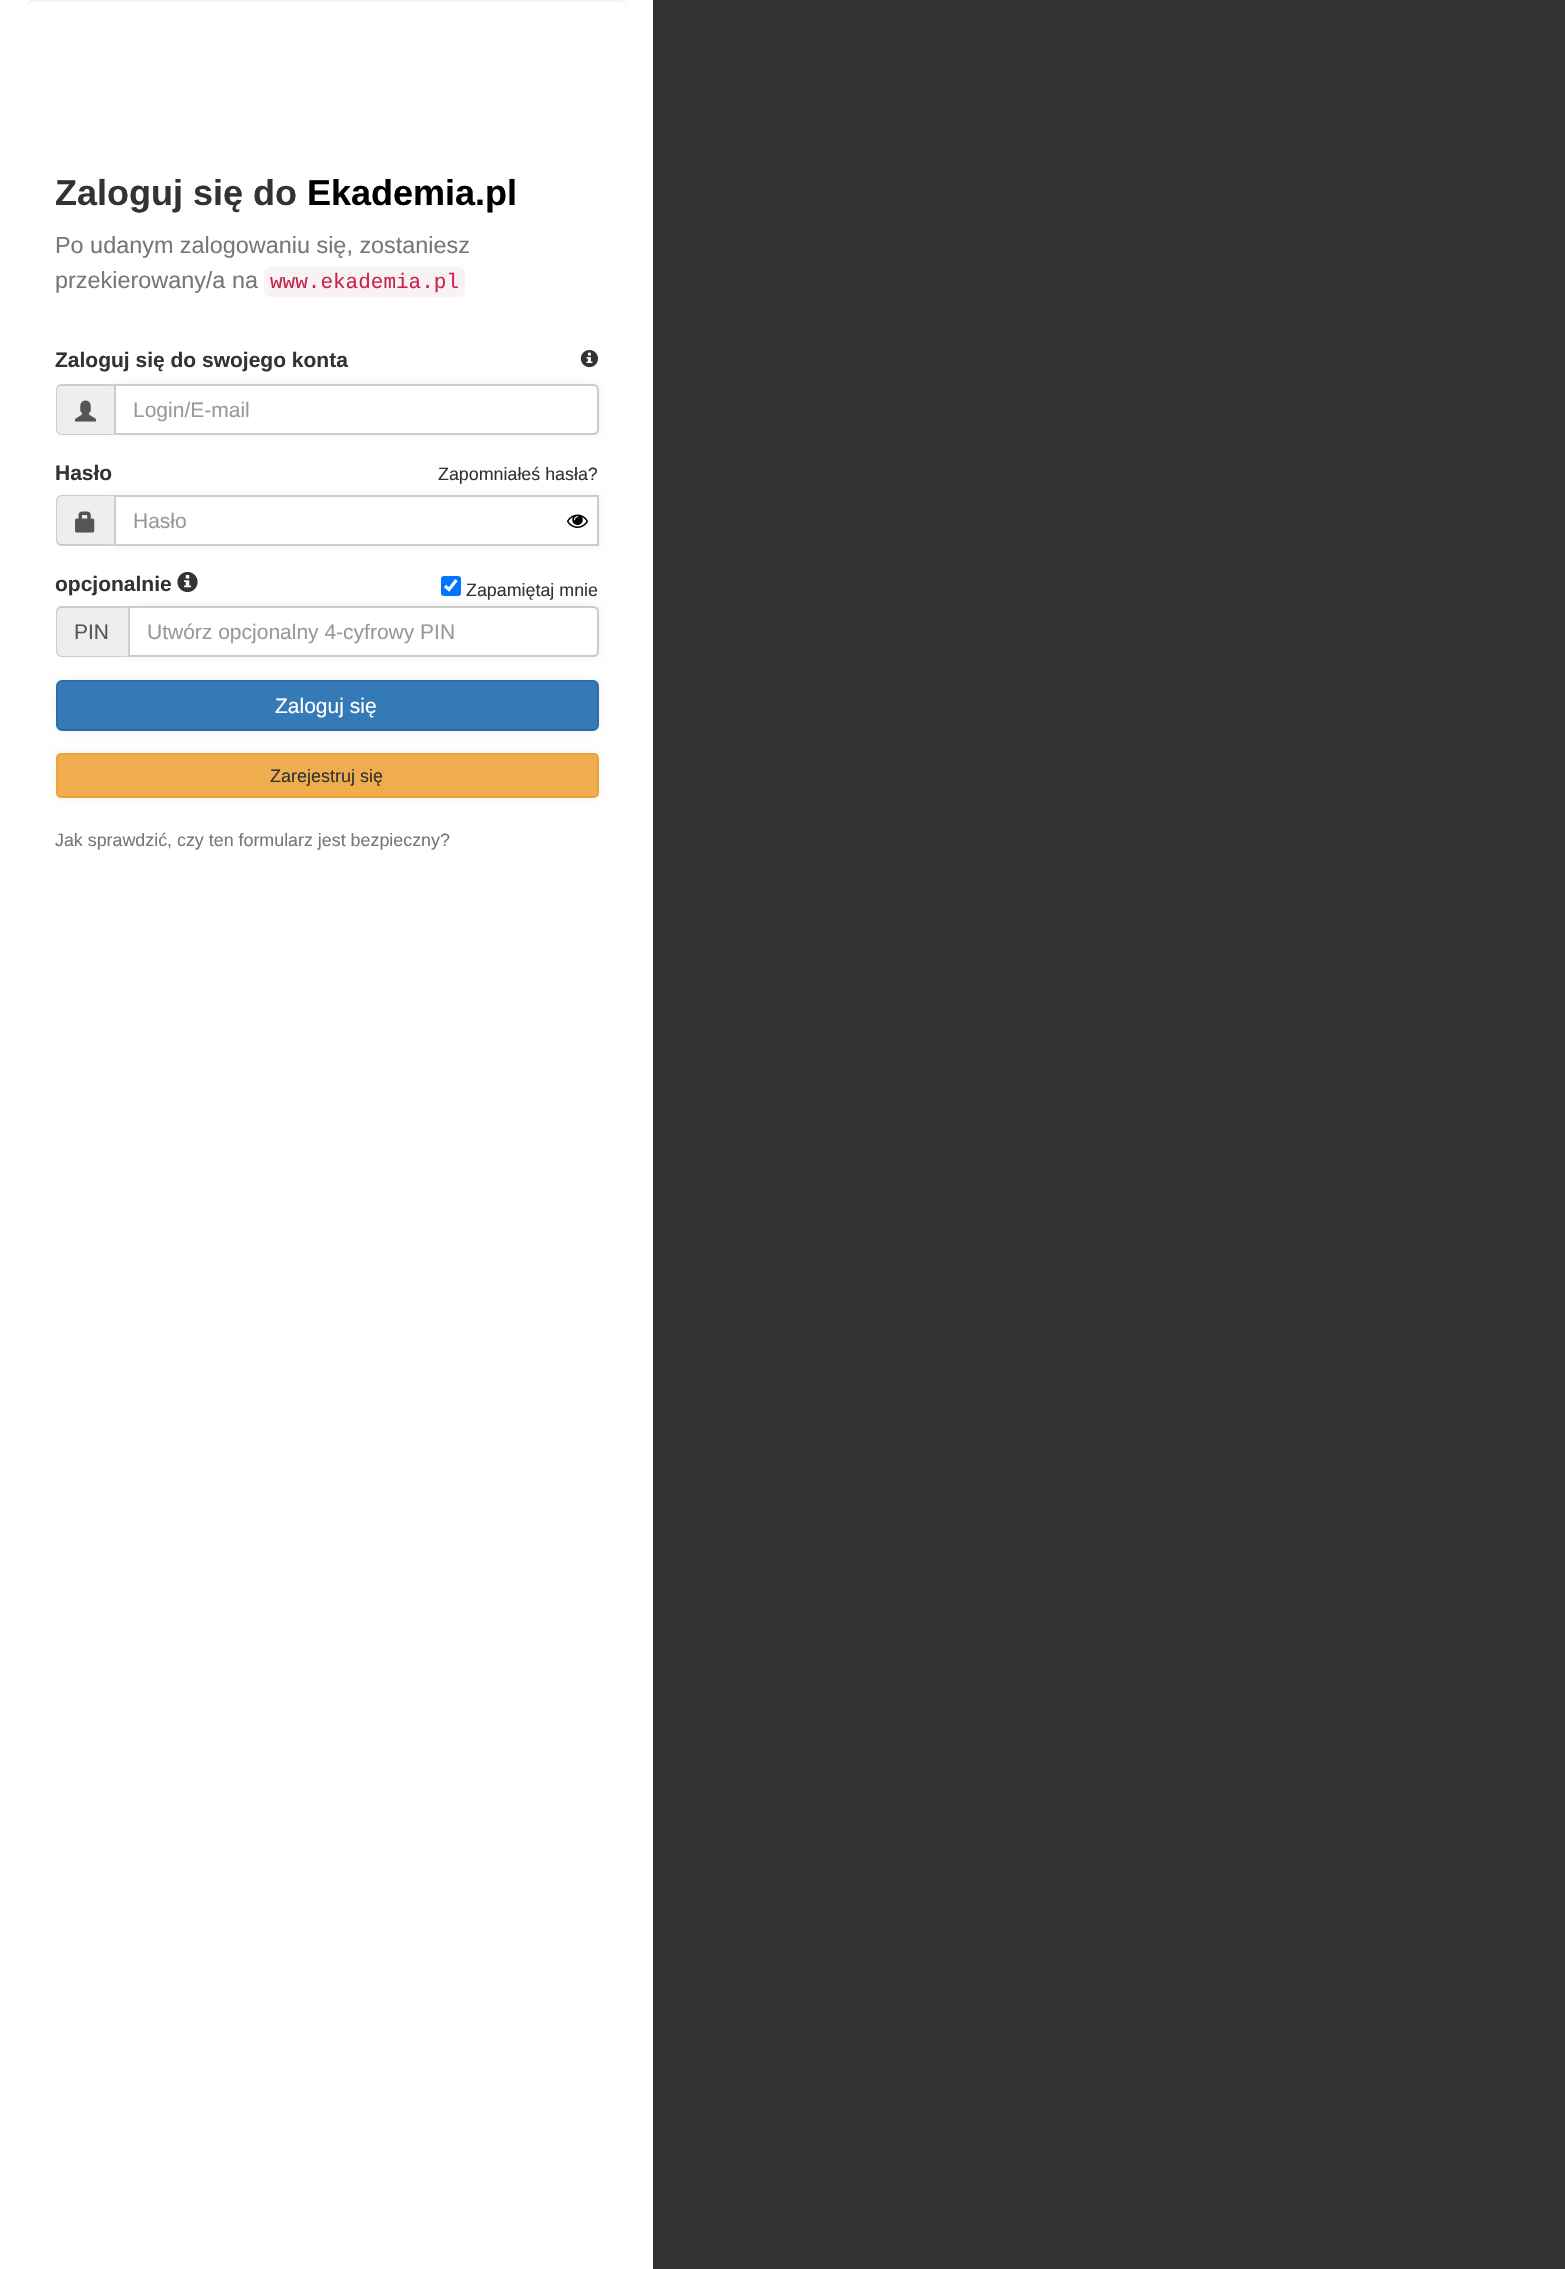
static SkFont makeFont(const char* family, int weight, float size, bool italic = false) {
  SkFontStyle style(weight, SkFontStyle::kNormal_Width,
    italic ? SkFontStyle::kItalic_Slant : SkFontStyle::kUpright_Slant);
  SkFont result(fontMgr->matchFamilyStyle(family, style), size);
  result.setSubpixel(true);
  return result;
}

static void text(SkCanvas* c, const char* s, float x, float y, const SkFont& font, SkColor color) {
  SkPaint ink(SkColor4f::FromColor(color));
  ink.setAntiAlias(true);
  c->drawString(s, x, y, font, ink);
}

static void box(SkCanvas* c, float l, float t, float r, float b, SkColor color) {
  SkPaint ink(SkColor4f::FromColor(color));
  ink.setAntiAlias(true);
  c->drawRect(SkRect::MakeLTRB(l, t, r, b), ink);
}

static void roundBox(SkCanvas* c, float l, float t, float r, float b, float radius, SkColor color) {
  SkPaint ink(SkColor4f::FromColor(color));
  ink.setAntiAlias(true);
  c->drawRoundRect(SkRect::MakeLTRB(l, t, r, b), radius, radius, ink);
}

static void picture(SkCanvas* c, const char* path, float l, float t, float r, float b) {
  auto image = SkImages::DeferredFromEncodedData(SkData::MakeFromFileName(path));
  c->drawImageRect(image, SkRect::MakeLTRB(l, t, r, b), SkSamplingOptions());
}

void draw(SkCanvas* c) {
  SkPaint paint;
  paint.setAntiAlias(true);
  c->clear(0xffffffff);
  paint.setColor(0xfff2f2f2);
  c->drawPath(SkPathBuilder().moveTo(33, 2).lineTo(621, 2).cubicTo(624, 2, 627, 4, 627, 8).lineTo(627, 6).cubicTo(627, 3, 624, 0, 621, 0).lineTo(33, 0).cubicTo(30, 0, 27, 3, 27, 6).lineTo(27, 8).cubicTo(27, 4, 30, 2, 33, 2).close().detach(), paint);
  SkFont face1 = makeFont("Liberation Sans", 700, 36);
  text(c, "Zaloguj się do", 55, 205, face1, 0xff333333);
  text(c, "Ekademia.pl", 307, 205, face1, 0xff000000);
  SkFont face2 = makeFont("Liberation Sans", 400, 23.4f);
  text(c, "Po udanym zalogowaniu się, zostaniesz", 55, 253, face2, 0xff777777);
  text(c, "przekierowany/a na", 55, 288, face2, 0xff777777);
  roundBox(c, 264, 267, 465, 297, 6, 0xfff9f2f4);
  SkFont face3 = makeFont("Liberation Mono", 400, 21);
  text(c, "www.ekademia.pl", 270, 288, face3, 0xffc7254e);
  SkFont face4 = makeFont("Liberation Sans", 700, 21);
  text(c, "Zaloguj się do swojego konta", 55, 367, face4, 0xff333333);
  picture(c, "img_01.png", 580, 350, 598, 368);
  paint.setColor(0xffeeeeee);
  c->drawPath(SkPathBuilder().moveTo(62, 384).lineTo(114, 384).lineTo(114, 435).lineTo(62, 435).cubicTo(58.5f, 435, 56, 432.5f, 56, 429).lineTo(56, 390).cubicTo(56, 386.5f, 58.5f, 384, 62, 384).close().detach(), paint);
  paint.setColor(0xffcccccc);
  c->drawPath(SkPathBuilder(SkPathFillType::kEvenOdd).moveTo(62, 384).lineTo(114, 384).lineTo(114, 435).lineTo(62, 435).cubicTo(58, 435, 56, 432, 56, 429).lineTo(56, 390).cubicTo(56, 387, 58, 384, 62, 384).close().moveTo(62, 386).lineTo(114, 386).lineTo(114, 434).lineTo(62, 434).cubicTo(59, 434, 57, 431, 57, 429).lineTo(57, 390).cubicTo(57, 388, 59, 386, 62, 386).close().detach(), paint);
  picture(c, "img_02.png", 75, 400, 96, 422);
  paint.setColor(0xfff1f1f1);
  paint.setMaskFilter(SkMaskFilter::MakeBlur(kNormal_SkBlurStyle, 4));
  c->drawRoundRect(SkRect::MakeLTRB(114, 384, 599, 435), 6, 6, paint);
  paint.setMaskFilter(nullptr);
  paint.setColor(0xffffffff);
  c->drawPath(SkPathBuilder().moveTo(115, 385).lineTo(593, 385).cubicTo(596, 385, 598, 387, 598, 390).lineTo(598, 429).cubicTo(598, 432, 596, 434, 593, 434).lineTo(115, 434).close().detach(), paint);
  paint.setStyle(SkPaint::kStroke_Style);
  paint.setStrokeWidth(2);
  paint.setColor(0xffcccccc);
  c->drawPath(SkPathBuilder().moveTo(115, 385).lineTo(593, 385).cubicTo(596, 385, 598, 387, 598, 390).lineTo(598, 429).cubicTo(598, 432, 596, 434, 593, 434).lineTo(115, 434).close().detach(), paint);
  SkFont face5 = makeFont("Liberation Sans", 400, 21);
  text(c, "Login/E-mail", 133, 417, face5, 0xff999999);
  text(c, "Hasło", 55, 480, face4, 0xff333333);
  SkFont face6 = makeFont("Liberation Sans", 400, 17.85f);
  text(c, "Zapomniałeś hasła?", 438, 480, face6, 0xff333333);
  paint.setStyle(SkPaint::kFill_Style);
  paint.setColor(0xffeeeeee);
  c->drawPath(SkPathBuilder().moveTo(62, 495).lineTo(114, 495).lineTo(114, 546).lineTo(62, 546).cubicTo(58.5f, 546, 56, 543.5f, 56, 540).lineTo(56, 501).cubicTo(56, 497.5f, 58.5f, 495, 62, 495).close().detach(), paint);
  paint.setColor(0xffcccccc);
  c->drawPath(SkPathBuilder(SkPathFillType::kEvenOdd).moveTo(62, 495).lineTo(114, 495).lineTo(114, 546).lineTo(62, 546).cubicTo(58, 546, 56, 543, 56, 540).lineTo(56, 501).cubicTo(56, 498, 58, 495, 62, 495).close().moveTo(62, 496).lineTo(114, 496).lineTo(114, 544).lineTo(62, 544).cubicTo(59, 544, 57, 542, 57, 540).lineTo(57, 501).cubicTo(57, 499, 59, 496, 62, 496).close().detach(), paint);
  picture(c, "img_03.png", 75, 511, 95, 533);
  paint.setColor(0xfff1f1f1);
  paint.setMaskFilter(SkMaskFilter::MakeBlur(kNormal_SkBlurStyle, 4));
  c->drawRect(SkRect::MakeLTRB(114, 495, 599, 546), paint);
  paint.setMaskFilter(nullptr);
  paint.setColor(0xffffffff);
  c->drawRect(SkRect::MakeLTRB(115, 496, 598, 545), paint);
  paint.setStyle(SkPaint::kStroke_Style);
  paint.setColor(0xffcccccc);
  c->drawRect(SkRect::MakeLTRB(115, 496, 598, 545), paint);
  text(c, "Hasło", 133, 528, face5, 0xff999999);
  picture(c, "img_04.png", 567, 514, 588, 528);
  text(c, "opcjonalnie", 55, 591, face4, 0xff333333);
  picture(c, "img_05.png", 177, 571, 198, 593);
  roundBox(c, 441, 576, 461, 596, 3, 0xff0075ff);
  paint.setStrokeWidth(3.1f);
  paint.setColor(0xffffffff);
  c->drawPath(SkPathBuilder().moveTo(445, 586).lineTo(449, 589.5f).lineTo(456.5f, 580).detach(), paint);
  text(c, "Zapamiętaj mnie", 466, 596, face6, 0xff333333);
  paint.setStyle(SkPaint::kFill_Style);
  paint.setColor(0xffeeeeee);
  c->drawPath(SkPathBuilder().moveTo(62, 606).lineTo(128, 606).lineTo(128, 657).lineTo(62, 657).cubicTo(58.5f, 657, 56, 654.5f, 56, 651).lineTo(56, 612).cubicTo(56, 608.5f, 58.5f, 606, 62, 606).close().detach(), paint);
  paint.setColor(0xffcccccc);
  c->drawPath(SkPathBuilder(SkPathFillType::kEvenOdd).moveTo(62, 606).lineTo(128, 606).lineTo(128, 657).lineTo(62, 657).cubicTo(58, 657, 56, 654, 56, 651).lineTo(56, 612).cubicTo(56, 609, 58, 606, 62, 606).close().moveTo(62, 608).lineTo(128, 608).lineTo(128, 656).lineTo(62, 656).cubicTo(59, 656, 57, 653, 57, 651).lineTo(57, 612).cubicTo(57, 610, 59, 608, 62, 608).close().detach(), paint);
  text(c, "PIN", 74, 639, face5, 0xff555555);
  paint.setColor(0xfff1f1f1);
  paint.setMaskFilter(SkMaskFilter::MakeBlur(kNormal_SkBlurStyle, 4));
  c->drawRoundRect(SkRect::MakeLTRB(128, 606, 599, 657), 6, 6, paint);
  paint.setMaskFilter(nullptr);
  paint.setColor(0xffffffff);
  c->drawPath(SkPathBuilder().moveTo(129, 607).lineTo(593, 607).cubicTo(596, 607, 598, 609, 598, 612).lineTo(598, 651).cubicTo(598, 654, 596, 656, 593, 656).lineTo(129, 656).close().detach(), paint);
  paint.setStyle(SkPaint::kStroke_Style);
  paint.setStrokeWidth(2);
  paint.setColor(0xffcccccc);
  c->drawPath(SkPathBuilder().moveTo(129, 607).lineTo(593, 607).cubicTo(596, 607, 598, 609, 598, 612).lineTo(598, 651).cubicTo(598, 654, 596, 656, 593, 656).lineTo(129, 656).close().detach(), paint);
  text(c, "Utwórz opcjonalny 4-cyfrowy PIN", 147, 639, face5, 0xff999999);
  paint.setStyle(SkPaint::kFill_Style);
  paint.setColor(0xfff1f1f1);
  paint.setMaskFilter(SkMaskFilter::MakeBlur(kNormal_SkBlurStyle, 4));
  c->drawRoundRect(SkRect::MakeLTRB(56, 680, 599, 731), 6, 6, paint);
  paint.setMaskFilter(nullptr);
  paint.setColor(0xff337ab7);
  c->drawRoundRect(SkRect::MakeLTRB(57, 681, 598, 730), 5, 5, paint);
  paint.setStyle(SkPaint::kStroke_Style);
  paint.setColor(0xff2e6da4);
  c->drawRoundRect(SkRect::MakeLTRB(57, 681, 598, 730), 5, 5, paint);
  text(c, "Zaloguj się", 275, 713, face5, 0xffffffff);
  paint.setStyle(SkPaint::kFill_Style);
  paint.setColor(0xfff1f1f1);
  paint.setMaskFilter(SkMaskFilter::MakeBlur(kNormal_SkBlurStyle, 4));
  c->drawRoundRect(SkRect::MakeLTRB(56, 753, 599, 798), 5, 5, paint);
  paint.setMaskFilter(nullptr);
  paint.setColor(0xfff0ad4e);
  c->drawRoundRect(SkRect::MakeLTRB(57, 754, 598, 797), 4, 4, paint);
  paint.setStyle(SkPaint::kStroke_Style);
  paint.setColor(0xffeea236);
  c->drawRoundRect(SkRect::MakeLTRB(57, 754, 598, 797), 4, 4, paint);
  SkFont face7 = makeFont("Liberation Sans", 400, 18);
  text(c, "Zarejestruj się", 270, 782, face7, 0xff333333);
  text(c, "Jak sprawdzić, czy ten formularz jest bezpieczny?", 55, 846, face6, 0xff777777);
  box(c, 653, 0, 1565, 2269, 0xff333333);
}
